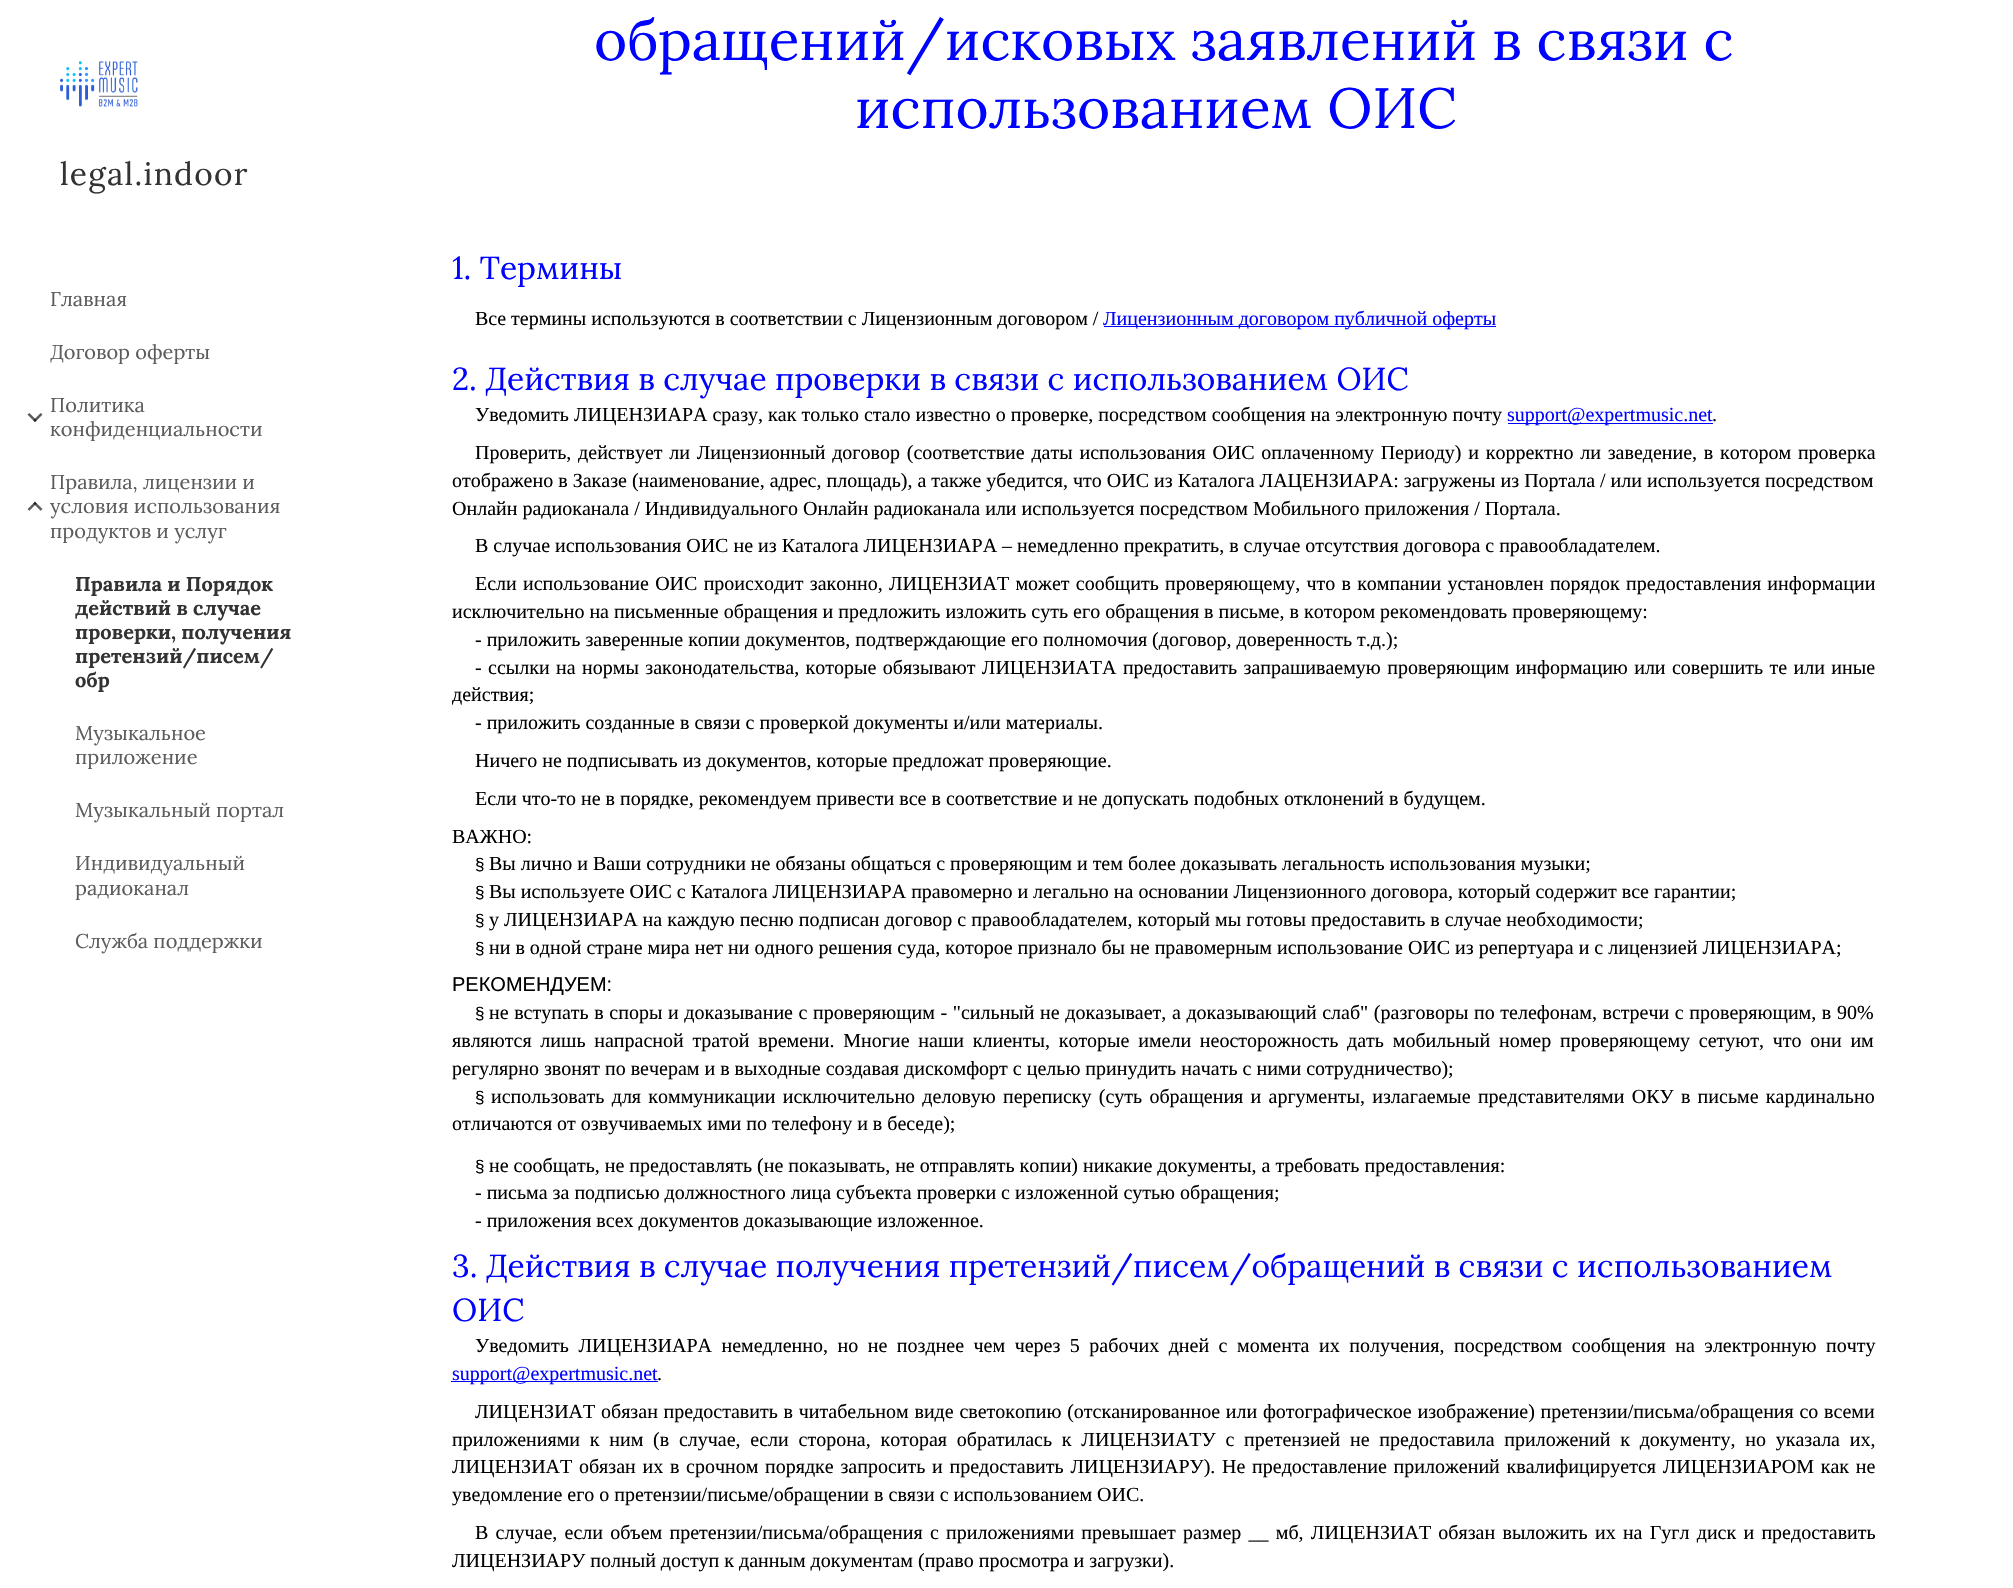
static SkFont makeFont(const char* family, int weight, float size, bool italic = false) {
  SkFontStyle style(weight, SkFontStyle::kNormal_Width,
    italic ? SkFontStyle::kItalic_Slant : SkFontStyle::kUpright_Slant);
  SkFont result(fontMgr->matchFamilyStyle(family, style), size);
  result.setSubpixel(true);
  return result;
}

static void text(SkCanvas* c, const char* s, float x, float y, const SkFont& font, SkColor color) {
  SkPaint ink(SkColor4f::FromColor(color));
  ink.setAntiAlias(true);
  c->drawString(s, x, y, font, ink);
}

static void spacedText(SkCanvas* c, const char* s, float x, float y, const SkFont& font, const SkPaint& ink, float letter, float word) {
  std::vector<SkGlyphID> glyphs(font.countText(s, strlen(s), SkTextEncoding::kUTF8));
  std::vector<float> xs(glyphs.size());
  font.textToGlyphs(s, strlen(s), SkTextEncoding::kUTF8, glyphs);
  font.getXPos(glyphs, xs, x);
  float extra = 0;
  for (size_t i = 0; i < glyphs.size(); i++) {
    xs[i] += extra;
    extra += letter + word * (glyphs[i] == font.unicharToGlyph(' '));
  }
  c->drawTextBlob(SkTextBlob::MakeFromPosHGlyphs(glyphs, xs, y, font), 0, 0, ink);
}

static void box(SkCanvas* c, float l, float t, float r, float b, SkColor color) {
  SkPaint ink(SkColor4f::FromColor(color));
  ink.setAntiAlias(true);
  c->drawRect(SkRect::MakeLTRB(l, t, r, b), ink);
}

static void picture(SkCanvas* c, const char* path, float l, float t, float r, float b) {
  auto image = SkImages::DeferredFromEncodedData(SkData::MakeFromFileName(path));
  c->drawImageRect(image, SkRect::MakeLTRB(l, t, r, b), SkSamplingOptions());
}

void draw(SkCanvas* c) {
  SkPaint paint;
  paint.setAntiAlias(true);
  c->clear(0xffffffff);
  picture(c, "img_01.png", 60, 61, 138, 107);
  SkFont face1 = makeFont("Lora", 400, 31.65f);
  paint.setColor(0xff333333);
  spacedText(c, "legal.indoor", 60, 185, face1, paint, 1.25f, 0);
  SkFont face2 = makeFont("Lora", 400, 20);
  text(c, "Главная", 50, 306, face2, 0xff5c5c5c);
  text(c, "Договор оферты", 50, 359, face2, 0xff5c5c5c);
  picture(c, "img_02.png", 27, 413, 43, 422);
  text(c, "Политика", 50, 412, face2, 0xff5c5c5c);
  text(c, "конфиденциальности", 50, 436, face2, 0xff5c5c5c);
  picture(c, "img_03.png", 27, 501, 43, 511);
  text(c, "Правила, лицензии и", 50, 489, face2, 0xff5c5c5c);
  text(c, "условия использования", 50, 513, face2, 0xff5c5c5c);
  text(c, "продуктов и услуг", 50, 538, face2, 0xff5c5c5c);
  SkFont face3 = makeFont("Lora", 700, 20);
  text(c, "Правила и Порядок", 75, 591, face3, 0xff333333);
  text(c, "действий в случае", 75, 615, face3, 0xff333333);
  text(c, "проверки, получения", 75, 639, face3, 0xff333333);
  text(c, "претензий/писем/", 75, 663, face3, 0xff333333);
  text(c, "обр", 75, 687, face3, 0xff333333);
  text(c, "Музыкальное", 75, 740, face2, 0xff5c5c5c);
  text(c, "приложение", 75, 764, face2, 0xff5c5c5c);
  text(c, "Музыкальный портал", 75, 817, face2, 0xff5c5c5c);
  text(c, "Индивидуальный", 75, 870, face2, 0xff5c5c5c);
  text(c, "радиоканал", 75, 895, face2, 0xff5c5c5c);
  text(c, "Служба поддержки", 75, 948, face2, 0xff5c5c5c);
  SkFont face4 = makeFont("Lora", 400, 56.7f);
  text(c, "обращений/исковых заявлений в связи с", 594, 60, face4, 0xff0002ff);
  text(c, "использованием ОИС", 855, 128, face4, 0xff0002ff);
  text(c, "1. Термины", 452, 279, face1, 0xff0002ff);
  SkFont face5 = makeFont("Liberation Serif", 400, 20);
  text(c, "Все термины используются в соответствии с Лицензионным договором /", 475, 325, face5, 0xff000000);
  box(c, 1104, 326, 1496, 327, 0xff0002ff);
  text(c, "Лицензионным договором публичной оферты", 1103, 325, face5, 0xff0002ff);
  text(c, "2. Действия в случае проверки в связи с использованием ОИС", 452, 390, face1, 0xff0002ff);
  text(c, "Уведомить ЛИЦЕНЗИАРА сразу, как только стало известно о проверке, посредством сообщения на электронную почту", 475, 421, face5, 0xff000000);
  box(c, 1508, 423, 1713, 424, 0xff0000ff);
  text(c, "support@expertmusic.net", 1507, 421, face5, 0xff0002ff);
  text(c, ".", 1712, 421, face5, 0xff000000);
  paint.setColor(0xff000000);
  spacedText(c, "Проверить, действует ли Лицензионный договор (соответствие даты использования ОИС оплаченному Периоду) и корректно ли заведение, в котором проверка", 475, 459, face5, paint, 0, 1.75f);
  text(c, "отображено в Заказе (наименование, адрес, площадь), а также убедится, что ОИС из Каталога ЛАЦЕНЗИАРА: загружены из Портала / или используется посредством", 452, 487, face5, 0xff000000);
  text(c, "Онлайн радиоканала / Индивидуального Онлайн радиоканала или используется посредством Мобильного приложения / Портала.", 452, 515, face5, 0xff000000);
  text(c, "В случае использования ОИС не из Каталога ЛИЦЕНЗИАРА – немедленно прекратить, в случае отсутствия договора с правообладателем.", 475, 552, face5, 0xff000000);
  spacedText(c, "Если использование ОИС происходит законно, ЛИЦЕНЗИАТ может сообщить проверяющему, что в компании установлен порядок предоставления информации", 475, 590, face5, paint, 0, 1.25f);
  text(c, "исключительно на письменные обращения и предложить изложить суть его обращения в письме, в котором рекомендовать проверяющему:", 452, 618, face5, 0xff000000);
  text(c, "- приложить заверенные копии документов, подтверждающие его полномочия (договор, доверенность т.д.);", 475, 646, face5, 0xff000000);
  spacedText(c, "- ссылки на нормы законодательства, которые обязывают ЛИЦЕНЗИАТА предоставить запрашиваемую проверяющим информацию или совершить те или иные", 475, 674, face5, paint, 0, 1.4f);
  text(c, "действия;", 452, 701, face5, 0xff000000);
  text(c, "- приложить созданные в связи с проверкой документы и/или материалы.", 475, 729, face5, 0xff000000);
  text(c, "Ничего не подписывать из документов, которые предложат проверяющие.", 475, 767, face5, 0xff000000);
  text(c, "Если что-то не в порядке, рекомендуем привести все в соответствие и не допускать подобных отклонений в будущем.", 475, 805, face5, 0xff000000);
  text(c, "ВАЖНО:", 452, 843, face5, 0xff000000);
  SkFont face6 = makeFont("Liberation Sans", 400, 17);
  text(c, "§", 475, 870, face6, 0xff000000);
  text(c, "Вы лично и Ваши сотрудники не обязаны общаться с проверяющим и тем более доказывать легальность использования музыки;", 489, 870, face5, 0xff000000);
  text(c, "§", 475, 898, face6, 0xff000000);
  text(c, "Вы используете ОИС с Каталога ЛИЦЕНЗИАРА правомерно и легально на основании Лицензионного договора, который содержит все гарантии;", 489, 898, face5, 0xff000000);
  text(c, "§", 475, 926, face6, 0xff000000);
  text(c, "у ЛИЦЕНЗИАРА на каждую песню подписан договор с правообладателем, который мы готовы предоставить в случае необходимости;", 489, 926, face5, 0xff000000);
  text(c, "§", 475, 954, face6, 0xff000000);
  text(c, "ни в одной стране мира нет ни одного решения суда, которое признало бы не правомерным использование ОИС из репертуара и с лицензией ЛИЦЕНЗИАРА;", 489, 954, face5, 0xff000000);
  SkFont face7 = makeFont("Liberation Sans", 400, 20);
  text(c, "РЕКОМЕНДУЕМ:", 452, 991, face7, 0xff000000);
  text(c, "§", 475, 1019, face6, 0xff000000);
  spacedText(c, "не вступать в споры и доказывание с проверяющим - \"сильный не доказывает, а доказывающий слаб\" (разговоры по телефонам, встречи с проверяющим, в 90%", 489, 1019, face5, paint, 0, 0.6f);
  spacedText(c, "являются лишь напрасной тратой времени. Многие наши клиенты, которые имели неосторожность дать мобильный номер проверяющему сетуют, что они им", 452, 1047, face5, paint, 0, 3.75f);
  text(c, "регулярно звонят по вечерам и в выходные создавая дискомфорт с целью принудить начать с ними сотрудничество);", 452, 1075, face5, 0xff000000);
  text(c, "§", 475, 1103, face6, 0xff000000);
  spacedText(c, "использовать для коммуникации исключительно деловую переписку (суть обращения и аргументы, излагаемые представителями ОКУ в письме кардинально", 491, 1103, face5, paint, 0, 2.25f);
  text(c, "отличаются от озвучиваемых ими по телефону и в беседе);", 452, 1130, face5, 0xff000000);
  text(c, "§", 475, 1172, face6, 0xff000000);
  text(c, "не сообщать, не предоставлять (не показывать, не отправлять копии) никакие документы, а требовать предоставления:", 489, 1172, face5, 0xff000000);
  text(c, "- письма за подписью должностного лица субъекта проверки с изложенной сутью обращения;", 475, 1199, face5, 0xff000000);
  text(c, "- приложения всех документов доказывающие изложенное.", 475, 1227, face5, 0xff000000);
  text(c, "3. Действия в случае получения претензий/писем/обращений в связи с использованием", 452, 1277, face1, 0xff0002ff);
  text(c, "ОИС", 452, 1321, face1, 0xff0002ff);
  spacedText(c, "Уведомить ЛИЦЕНЗИАРА немедленно, но не позднее чем через 5 рабочих дней с момента их получения, посредством сообщения на электронную почту", 475, 1352, face5, paint, 0, 4.5f);
  box(c, 451, 1381, 658, 1382, 0xff0000ff);
  text(c, "support@expertmusic.net", 452, 1380, face5, 0xff0002ff);
  text(c, ".", 657, 1380, face5, 0xff000000);
  spacedText(c, "ЛИЦЕНЗИАТ обязан предоставить в читабельном виде светокопию (отсканированное или фотографическое изображение) претензии/письма/обращения со всеми", 475, 1418, face5, paint, 0, 0.75f);
  spacedText(c, "приложениями к ним (в случае, если сторона, которая обратилась к ЛИЦЕНЗИАТУ с претензией не предоставила приложений к документу, но указала их,", 452, 1446, face5, paint, 0, 4.75f);
  spacedText(c, "ЛИЦЕНЗИАТ обязан их в срочном порядке запросить и предоставить ЛИЦЕНЗИАРУ). Не предоставление приложений квалифицируется ЛИЦЕНЗИАРОМ как не", 452, 1473, face5, paint, 0, 1.7f);
  text(c, "уведомление его о претензии/письме/обращении в связи с использованием ОИС.", 452, 1501, face5, 0xff000000);
  spacedText(c, "В случае, если объем претензии/письма/обращения с приложениями превышает размер __ мб, ЛИЦЕНЗИАТ обязан выложить их на Гугл диск и предоставить", 475, 1539, face5, paint, 0, 2.25f);
  text(c, "ЛИЦЕНЗИАРУ полный доступ к данным документам (право просмотра и загрузки).", 452, 1567, face5, 0xff000000);
}
